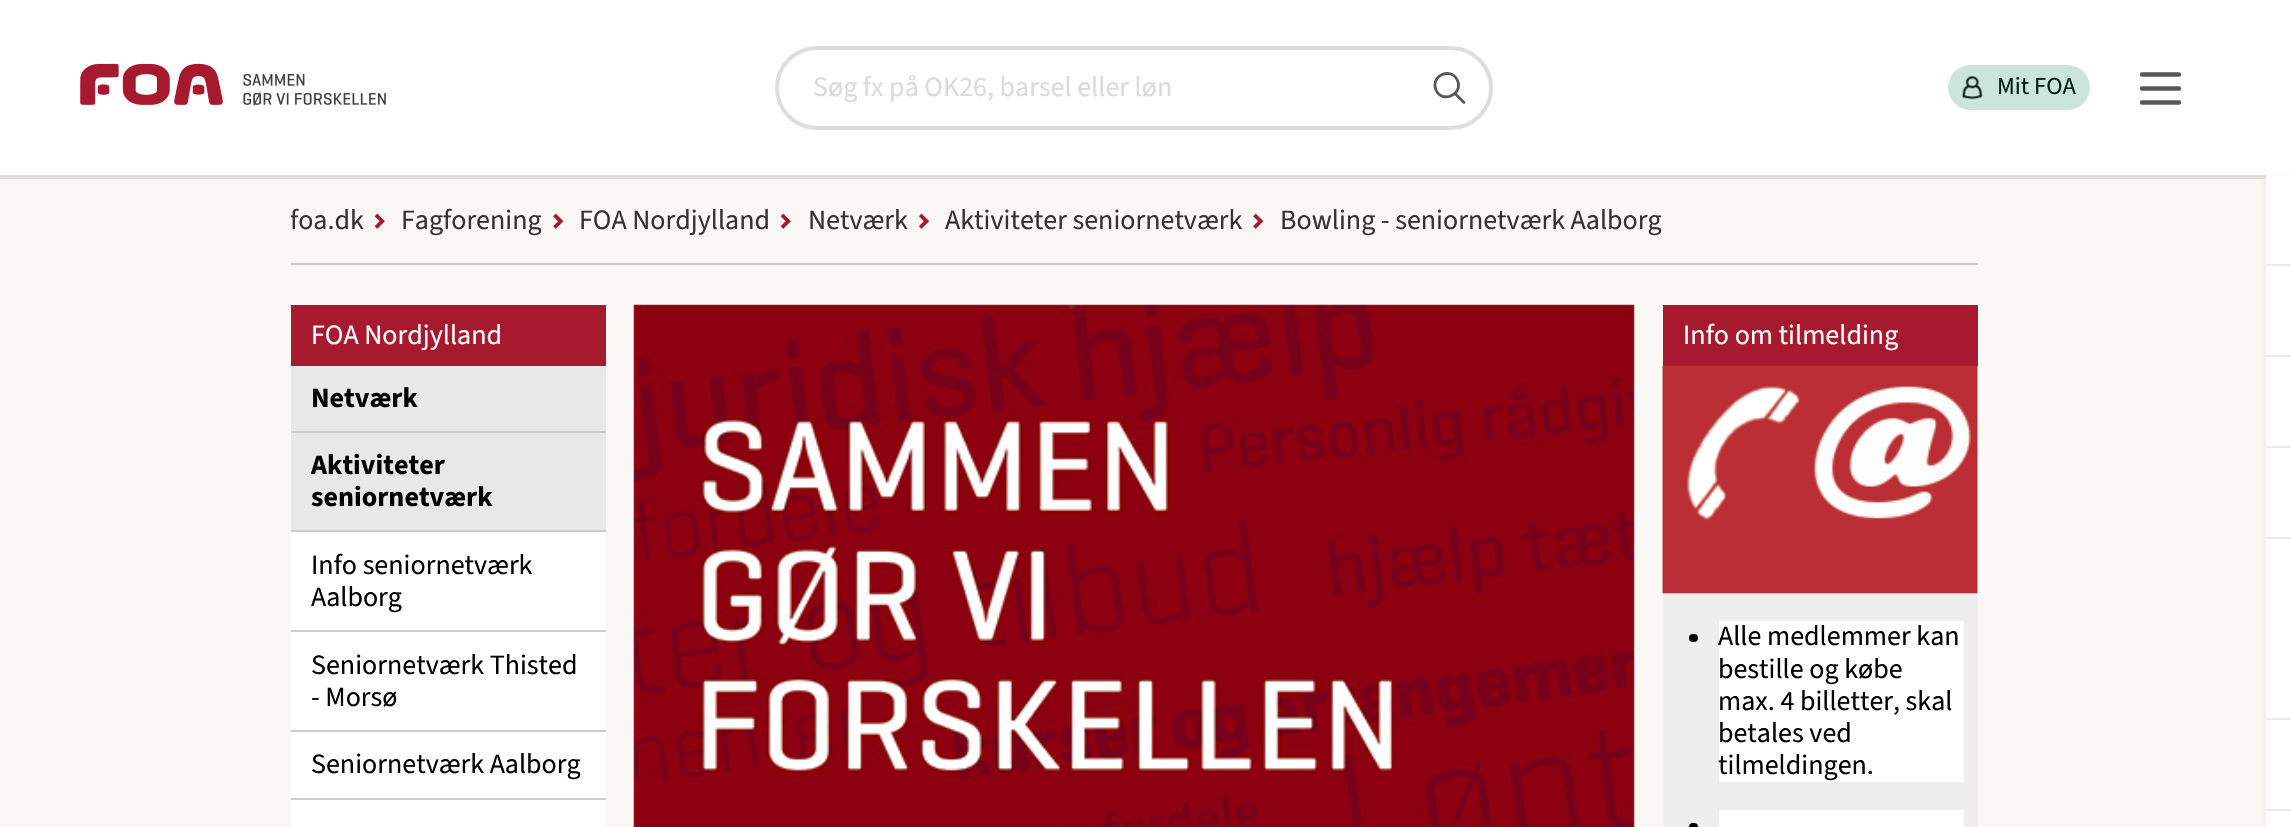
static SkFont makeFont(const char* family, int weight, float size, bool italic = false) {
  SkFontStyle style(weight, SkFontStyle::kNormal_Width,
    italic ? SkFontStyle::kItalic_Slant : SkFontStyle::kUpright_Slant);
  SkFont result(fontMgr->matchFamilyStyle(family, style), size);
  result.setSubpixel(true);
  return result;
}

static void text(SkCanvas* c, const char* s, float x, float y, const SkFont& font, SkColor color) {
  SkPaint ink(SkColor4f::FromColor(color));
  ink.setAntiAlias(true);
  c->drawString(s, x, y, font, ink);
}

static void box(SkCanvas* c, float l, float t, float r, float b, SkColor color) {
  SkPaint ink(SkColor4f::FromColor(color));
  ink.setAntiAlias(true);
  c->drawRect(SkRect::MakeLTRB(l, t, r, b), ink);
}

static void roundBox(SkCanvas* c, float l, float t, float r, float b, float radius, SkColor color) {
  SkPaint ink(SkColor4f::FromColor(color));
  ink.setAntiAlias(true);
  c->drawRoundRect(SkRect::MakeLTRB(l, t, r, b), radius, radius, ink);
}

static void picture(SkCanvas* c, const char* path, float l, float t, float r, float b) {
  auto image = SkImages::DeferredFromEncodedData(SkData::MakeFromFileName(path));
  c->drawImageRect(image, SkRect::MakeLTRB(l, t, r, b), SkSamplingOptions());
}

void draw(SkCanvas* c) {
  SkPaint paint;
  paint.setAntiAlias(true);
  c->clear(0xffffffff);
  box(c, 0, 179, 2266, 827, 0xfff9f8f4);
  box(c, 0, 175, 2266, 179, 0xffdedede);
  picture(c, "img_01.png", 80, 63, 386, 106);
  paint.setStyle(SkPaint::kStroke_Style);
  paint.setStrokeWidth(4);
  paint.setColor(0xffdedede);
  c->drawRoundRect(SkRect::MakeLTRB(777, 48, 1491, 128), 40, 40, paint);
  SkFont face1 = makeFont("Source Sans 3", 400, 28);
  text(c, "Søg fx på OK26, barsel eller løn", 813, 96, face1, 0xffdadada);
  paint.setStrokeWidth(2.8f);
  paint.setStrokeCap(SkPaint::kRound_Cap);
  paint.setStrokeJoin(SkPaint::kRound_Join);
  paint.setColor(0xff575757);
  c->drawPath(SkPathBuilder().moveTo(1436, 90).cubicTo(1442, 104, 1463.5f, 94.5f, 1457.5f, 80.5f).cubicTo(1451.5f, 66.5f, 1430, 75.5f, 1436, 90).close().moveTo(1455, 93.5f).lineTo(1464, 102.5f).detach(), paint);
  roundBox(c, 1948, 65, 2090, 110, 22.5f, 0xffcce5dc);
  picture(c, "img_02.png", 1961, 76, 1983, 100);
  SkFont face2 = makeFont("Source Sans 3", 400, 24.5f);
  text(c, "Mit FOA", 1997, 94, face2, 0xff041d14);
  paint.setStrokeWidth(4.4f);
  paint.setStrokeJoin(SkPaint::kMiter_Join);
  c->drawPath(SkPathBuilder().moveTo(2142, 74.5f).lineTo(2179, 74.5f).moveTo(2142, 88.5f).lineTo(2179, 88.5f).moveTo(2142, 102.5f).lineTo(2179, 102.5f).detach(), paint);
  paint.setStyle(SkPaint::kFill_Style);
  paint.setColor(0xffdedede);
  paint.setMaskFilter(SkMaskFilter::MakeBlur(kNormal_SkBlurStyle, 2));
  c->drawRect(SkRect::MakeLTRB(2266, 177, 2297, 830), paint);
  paint.setMaskFilter(nullptr);
  box(c, 2266, 175, 2291, 827, 0xffffffff);
  box(c, 2266, 264, 2291, 266, 0xffe9e9e9);
  box(c, 2266, 355, 2291, 357, 0xffe9e9e9);
  box(c, 2266, 446, 2291, 448, 0xffe9e9e9);
  box(c, 2266, 537, 2291, 539, 0xffe9e9e9);
  box(c, 2266, 718, 2291, 720, 0xffe9e9e9);
  box(c, 2266, 809, 2291, 811, 0xffe9e9e9);
  box(c, 291, 263, 1978, 265, 0xffcccccc);
  c->save();
  c->clipRect(SkRect::MakeLTRB(291, 205, 1978, 263));
  text(c, "foa.dk", 290, 229, face1, 0xff333333);
  c->restore();
  picture(c, "img_03.png", 374, 213, 385, 229);
  text(c, "Fagforening", 401, 229, face1, 0xff333333);
  picture(c, "img_04.png", 553, 213, 564, 229);
  text(c, "FOA Nordjylland", 579, 229, face1, 0xff333333);
  picture(c, "img_03.png", 780, 213, 791, 229);
  text(c, "Netværk", 808, 229, face1, 0xff333333);
  picture(c, "img_05.png", 918, 213, 930, 229);
  text(c, "Aktiviteter seniornetværk", 945, 229, face1, 0xff333333);
  picture(c, "img_04.png", 1253, 213, 1264, 229);
  text(c, "Bowling - seniornetværk Aalborg", 1280, 229, face1, 0xff333333);
  box(c, 291, 305, 606, 366, 0xffa6192e);
  text(c, "FOA Nordjylland", 311, 344, face1, 0xffffffff);
  box(c, 291, 366, 606, 431, 0xffe8e8e8);
  box(c, 291, 431, 606, 433, 0xffcccccc);
  SkFont face3 = makeFont("Source Sans 3", 700, 28);
  text(c, "Netværk", 311, 407, face3, 0xff000000);
  box(c, 291, 433, 606, 530, 0xffe8e8e8);
  box(c, 291, 530, 606, 532, 0xffcccccc);
  text(c, "Aktiviteter", 311, 474, face3, 0xff000000);
  text(c, "seniornetværk", 311, 506, face3, 0xff000000);
  box(c, 291, 532, 606, 827, 0xffffffff);
  box(c, 291, 630, 606, 632, 0xffcccccc);
  text(c, "Info seniornetværk", 311, 574, face1, 0xff000000);
  text(c, "Aalborg", 311, 606, face1, 0xff000000);
  box(c, 291, 730, 606, 732, 0xffcccccc);
  text(c, "Seniornetværk Thisted", 311, 674, face1, 0xff000000);
  text(c, "- Morsø", 311, 706, face1, 0xff000000);
  box(c, 291, 798, 606, 800, 0xffcccccc);
  text(c, "Seniornetværk Aalborg", 311, 773, face1, 0xff000000);
  picture(c, "img_06.png", 633, 304, 1635, 827);
  box(c, 1663, 366, 1978, 827, 0xffeeeeee);
  box(c, 1663, 305, 1978, 366, 0xffa6192e);
  text(c, "Info om tilmelding", 1683, 344, face1, 0xffffffff);
  picture(c, "img_07.png", 1662, 365, 1978, 594);
  box(c, 1719, 621, 1964, 782, 0xffffffff);
  roundBox(c, 1689, 634, 1698, 642, 4, 0xff000000);
  text(c, "Alle medlemmer kan", 1718, 645, face1, 0xff000000);
  text(c, "bestille og købe", 1718, 678, face1, 0xff000000);
  text(c, "max. 4 billetter, skal", 1718, 710, face1, 0xff000000);
  text(c, "betales ved", 1718, 742, face1, 0xff000000);
  text(c, "tilmeldingen.", 1718, 774, face1, 0xff000000);
  box(c, 1719, 810, 1964, 827, 0xffffffff);
  roundBox(c, 1689, 823, 1698, 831, 4, 0xff000000);
}
